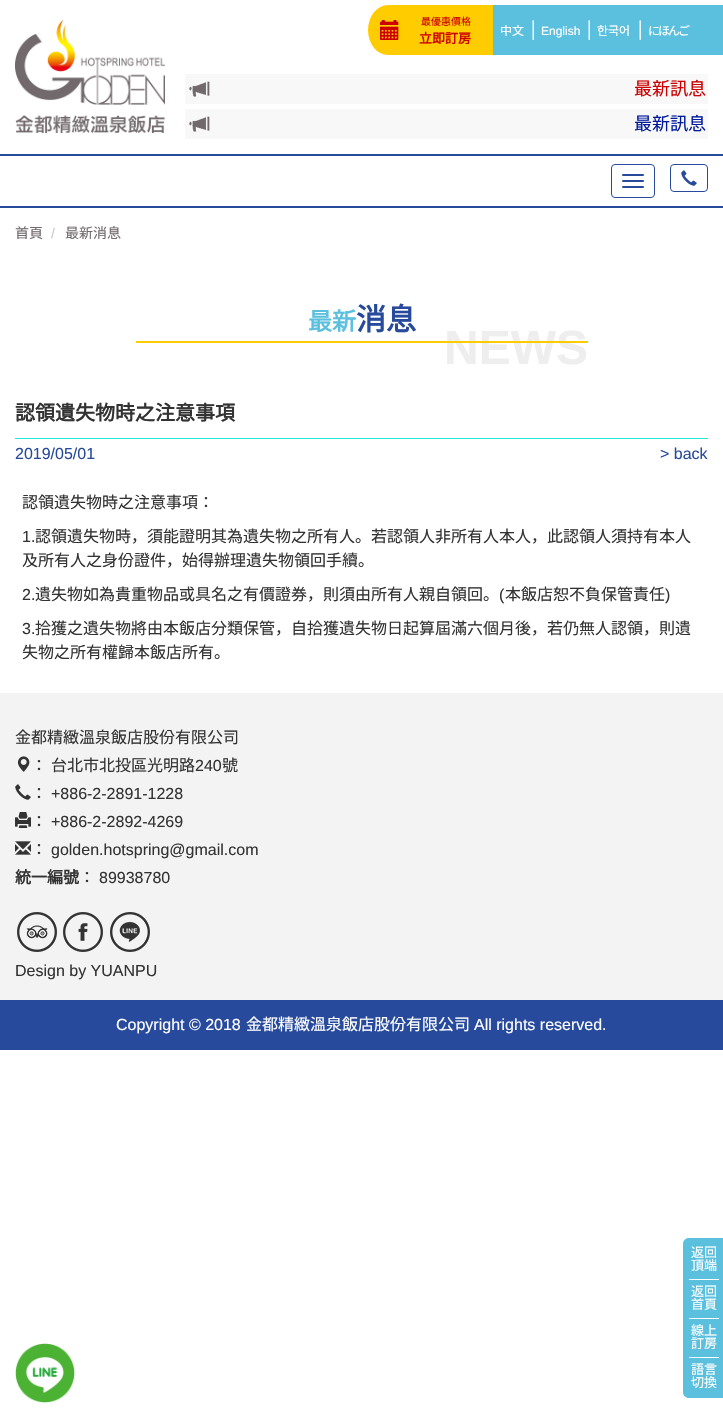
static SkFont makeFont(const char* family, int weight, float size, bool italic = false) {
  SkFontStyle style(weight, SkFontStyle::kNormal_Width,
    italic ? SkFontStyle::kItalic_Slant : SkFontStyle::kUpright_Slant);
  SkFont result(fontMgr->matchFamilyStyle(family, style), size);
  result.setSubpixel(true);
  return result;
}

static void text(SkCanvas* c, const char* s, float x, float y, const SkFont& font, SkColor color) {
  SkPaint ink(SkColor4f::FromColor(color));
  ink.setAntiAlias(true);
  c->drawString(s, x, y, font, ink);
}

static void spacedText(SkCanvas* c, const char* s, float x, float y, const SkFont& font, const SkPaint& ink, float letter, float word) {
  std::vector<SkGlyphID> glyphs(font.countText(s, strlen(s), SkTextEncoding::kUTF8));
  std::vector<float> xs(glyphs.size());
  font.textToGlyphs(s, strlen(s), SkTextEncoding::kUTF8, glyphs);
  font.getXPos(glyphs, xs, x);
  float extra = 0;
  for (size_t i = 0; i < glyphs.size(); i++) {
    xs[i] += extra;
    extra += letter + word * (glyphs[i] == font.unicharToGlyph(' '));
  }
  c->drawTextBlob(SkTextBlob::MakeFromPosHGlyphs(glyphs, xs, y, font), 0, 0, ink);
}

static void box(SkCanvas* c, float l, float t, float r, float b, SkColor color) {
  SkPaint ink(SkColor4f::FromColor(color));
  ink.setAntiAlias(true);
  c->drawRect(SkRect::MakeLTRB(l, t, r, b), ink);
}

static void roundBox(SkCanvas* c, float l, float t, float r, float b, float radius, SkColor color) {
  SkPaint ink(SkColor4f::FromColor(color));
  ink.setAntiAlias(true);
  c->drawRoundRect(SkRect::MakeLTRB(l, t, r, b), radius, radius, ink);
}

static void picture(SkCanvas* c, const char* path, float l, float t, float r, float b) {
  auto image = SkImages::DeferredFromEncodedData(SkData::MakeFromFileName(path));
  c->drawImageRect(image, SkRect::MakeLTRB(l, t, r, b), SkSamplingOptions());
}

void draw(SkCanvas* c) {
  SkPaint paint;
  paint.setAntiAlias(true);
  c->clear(0xffffffff);
  paint.setColor(0xffffcc00);
  c->drawOval(SkRect::MakeLTRB(368, 5, 408, 55), paint);
  box(c, 388, 5, 493, 55, 0xffffcc00);
  picture(c, "img_01.png", 380, 20, 399, 40);
  SkFont face1 = makeFont("Noto Sans JP", 100, 10);
  text(c, "最優惠價格", 421, 25, face1, 0xffcc0000);
  SkFont face2 = makeFont("Noto Sans JP", 700, 13);
  text(c, "立即訂房", 419, 43, face2, 0xffcc0000);
  box(c, 493, 5, 723, 55, 0xff5bc0de);
  SkFont face3 = makeFont("Noto Sans JP", 100, 12);
  text(c, "中文", 500, 35, face3, 0xffffffff);
  SkFont face4 = makeFont("Liberation Sans", 400, 16);
  text(c, "│", 529, 35, face4, 0xffffffff);
  SkFont face5 = makeFont("Liberation Sans", 400, 12);
  text(c, "English", 541, 35, face5, 0xffffffff);
  text(c, "│", 585, 35, face4, 0xffffffff);
  SkFont face6 = makeFont("Noto Sans KR", 100, 12);
  text(c, "한국어", 597, 35, face6, 0xffffffff);
  text(c, "│", 636, 35, face4, 0xffffffff);
  paint.setColor(0xffffffff);
  spacedText(c, "にほんご", 648, 35, face3, paint, -2, 0);
  picture(c, "img_02.png", 15, 20, 165, 133);
  box(c, 185, 74, 708, 104, 0xfff8f8f8);
  picture(c, "img_03.png", 189, 81, 210, 97);
  SkFont face7 = makeFont("Noto Sans JP", 100, 18);
  text(c, "最新訊息", 634, 95, face7, 0xffcc0000);
  box(c, 185, 109, 708, 139, 0xfff8f8f8);
  picture(c, "img_03.png", 189, 116, 210, 132);
  text(c, "最新訊息", 634, 130, face7, 0xff001a9d);
  box(c, 0, 154, 723, 156, 0xff274a9c);
  box(c, 0, 206, 723, 208, 0xff274a9c);
  paint.setStyle(SkPaint::kStroke_Style);
  paint.setStrokeWidth(1);
  paint.setColor(0xff274a9c);
  c->drawRoundRect(SkRect::MakeLTRB(611.5f, 164.5f, 654.5f, 197.5f), 3.5f, 3.5f, paint);
  roundBox(c, 622, 174, 644, 176, 1, 0xff274a9c);
  roundBox(c, 622, 180, 644, 182, 1, 0xff274a9c);
  roundBox(c, 622, 186, 644, 188, 1, 0xff274a9c);
  c->drawRoundRect(SkRect::MakeLTRB(670.5f, 164.5f, 707.5f, 191.5f), 3.5f, 3.5f, paint);
  picture(c, "img_04.png", 681, 170, 697, 186);
  SkFont face8 = makeFont("Noto Sans JP", 100, 14);
  text(c, "首頁", 15, 238, face8, 0xff71696c);
  SkFont face9 = makeFont("Liberation Sans", 400, 14);
  text(c, "/", 51, 238, face9, 0xffcccccc);
  text(c, "最新消息", 65, 238, face8, 0xff71696c);
  SkFont face10 = makeFont("Liberation Sans", 700, 48);
  text(c, "NEWS", 444, 364, face10, 0xffeeeeee);
  box(c, 136, 341, 588, 343, 0xffffcc00);
  SkFont face11 = makeFont("Noto Sans JP", 700, 24);
  text(c, "最新", 308, 330, face11, 0xff5bc0de);
  SkFont face12 = makeFont("Noto Sans JP", 700, 30);
  text(c, "消息", 356, 330, face12, 0xff274a9c);
  box(c, 15, 438, 708, 439, 0xff1ee9d3);
  SkFont face13 = makeFont("Noto Sans JP", 700, 20);
  text(c, "認領遺失物時之注意事項", 15, 420, face13, 0xff333333);
  text(c, "2019/05/01", 15, 459, face4, 0xff274a9c);
  text(c, "> back", 660, 459, face4, 0xff274a9c);
  SkFont face14 = makeFont("Noto Sans JP", 100, 16);
  text(c, "認領遺失物時之注意事項：", 22, 508, face14, 0xff333333);
  text(c, "1.", 22, 542, face4, 0xff333333);
  text(c, "認領遺失物時，須能證明其為遺失物之所有人。若認領人非所有人本人，此認領人須持有本人", 35, 542, face14, 0xff333333);
  text(c, "及所有人之身份證件，始得辦理遺失物領回手續。", 22, 566, face14, 0xff333333);
  text(c, "2.", 22, 600, face4, 0xff333333);
  text(c, "遺失物如為貴重物品或具名之有價證券，則須由所有人親自領回。", 35, 600, face14, 0xff333333);
  text(c, "(", 499, 600, face4, 0xff333333);
  text(c, "本飯店恕不負保管責任", 505, 600, face14, 0xff333333);
  text(c, ")", 665, 600, face4, 0xff333333);
  text(c, "3.", 22, 634, face4, 0xff333333);
  text(c, "拾獲之遺失物將由本飯店分類保管，自拾獲遺失物日起算屆滿六個月後，若仍無人認領，則遺", 35, 634, face14, 0xff333333);
  text(c, "失物之所有權歸本飯店所有。", 22, 658, face14, 0xff333333);
  box(c, 0, 693, 723, 1000, 0xfff3f3f3);
  text(c, "金都精緻溫泉飯店股份有限公司", 15, 743, face14, 0xff333333);
  picture(c, "img_05.png", 17, 756, 30, 772);
  text(c, "：", 31, 771, face14, 0xff333333);
  text(c, "台北市北投區光明路", 51, 771, face14, 0xff333333);
  text(c, "240", 195, 771, face4, 0xff333333);
  text(c, "號", 222, 771, face14, 0xff333333);
  picture(c, "img_06.png", 15, 784, 31, 800);
  text(c, "：", 31, 799, face14, 0xff333333);
  text(c, "+886-2-2891-1228", 51, 799, face4, 0xff333333);
  picture(c, "img_07.png", 15, 812, 31, 828);
  text(c, "：", 31, 827, face14, 0xff333333);
  text(c, "+886-2-2892-4269", 51, 827, face4, 0xff333333);
  picture(c, "img_08.png", 15, 841, 31, 855);
  text(c, "：", 31, 855, face14, 0xff333333);
  text(c, "golden.hotspring@gmail.com", 51, 855, face4, 0xff333333);
  SkFont face15 = makeFont("Noto Sans JP", 700, 16);
  text(c, "統一編號", 15, 883, face15, 0xff333333);
  text(c, "：", 79, 883, face14, 0xff333333);
  text(c, "89938780", 99, 883, face4, 0xff333333);
  picture(c, "img_09.png", 17, 912, 57, 952);
  picture(c, "img_10.png", 63, 912, 103, 952);
  picture(c, "img_11.png", 110, 912, 150, 952);
  text(c, "Design by YUANPU", 15, 976, face4, 0xff333333);
  box(c, 0, 1000, 723, 1050, 0xff274a9c);
  text(c, "Copyright © 2018", 116, 1030, face4, 0xffffffff);
  text(c, "金都精緻溫泉飯店股份有限公司", 246, 1030, face14, 0xffffffff);
  text(c, "All rights reserved.", 474, 1030, face4, 0xffffffff);
  picture(c, "img_12.png", 15, 1343, 75, 1403);
  paint.setStyle(SkPaint::kFill_Style);
  paint.setColor(0xff5bc0de);
  c->drawPath(SkPathBuilder().moveTo(689, 1238).lineTo(723, 1238).lineTo(723, 1398).lineTo(689, 1398).cubicTo(685.5f, 1398, 683, 1395.5f, 683, 1392).lineTo(683, 1244).cubicTo(683, 1240.5f, 685.5f, 1238, 689, 1238).close().detach(), paint);
  SkFont face16 = makeFont("Noto Sans JP", 100, 13);
  text(c, "返回", 691, 1257, face16, 0xffffffff);
  text(c, "頂端", 691, 1270, face16, 0xffffffff);
  box(c, 689, 1279, 719, 1280, 0xffffffff);
  text(c, "返回", 691, 1296, face16, 0xffffffff);
  text(c, "首頁", 691, 1309, face16, 0xffffffff);
  box(c, 689, 1318, 719, 1319, 0xffffffff);
  text(c, "線上", 691, 1335, face16, 0xffffffff);
  text(c, "訂房", 691, 1348, face16, 0xffffffff);
  box(c, 689, 1357, 719, 1358, 0xffffffff);
  text(c, "語言", 691, 1374, face16, 0xffffffff);
  text(c, "切換", 691, 1387, face16, 0xffffffff);
}
